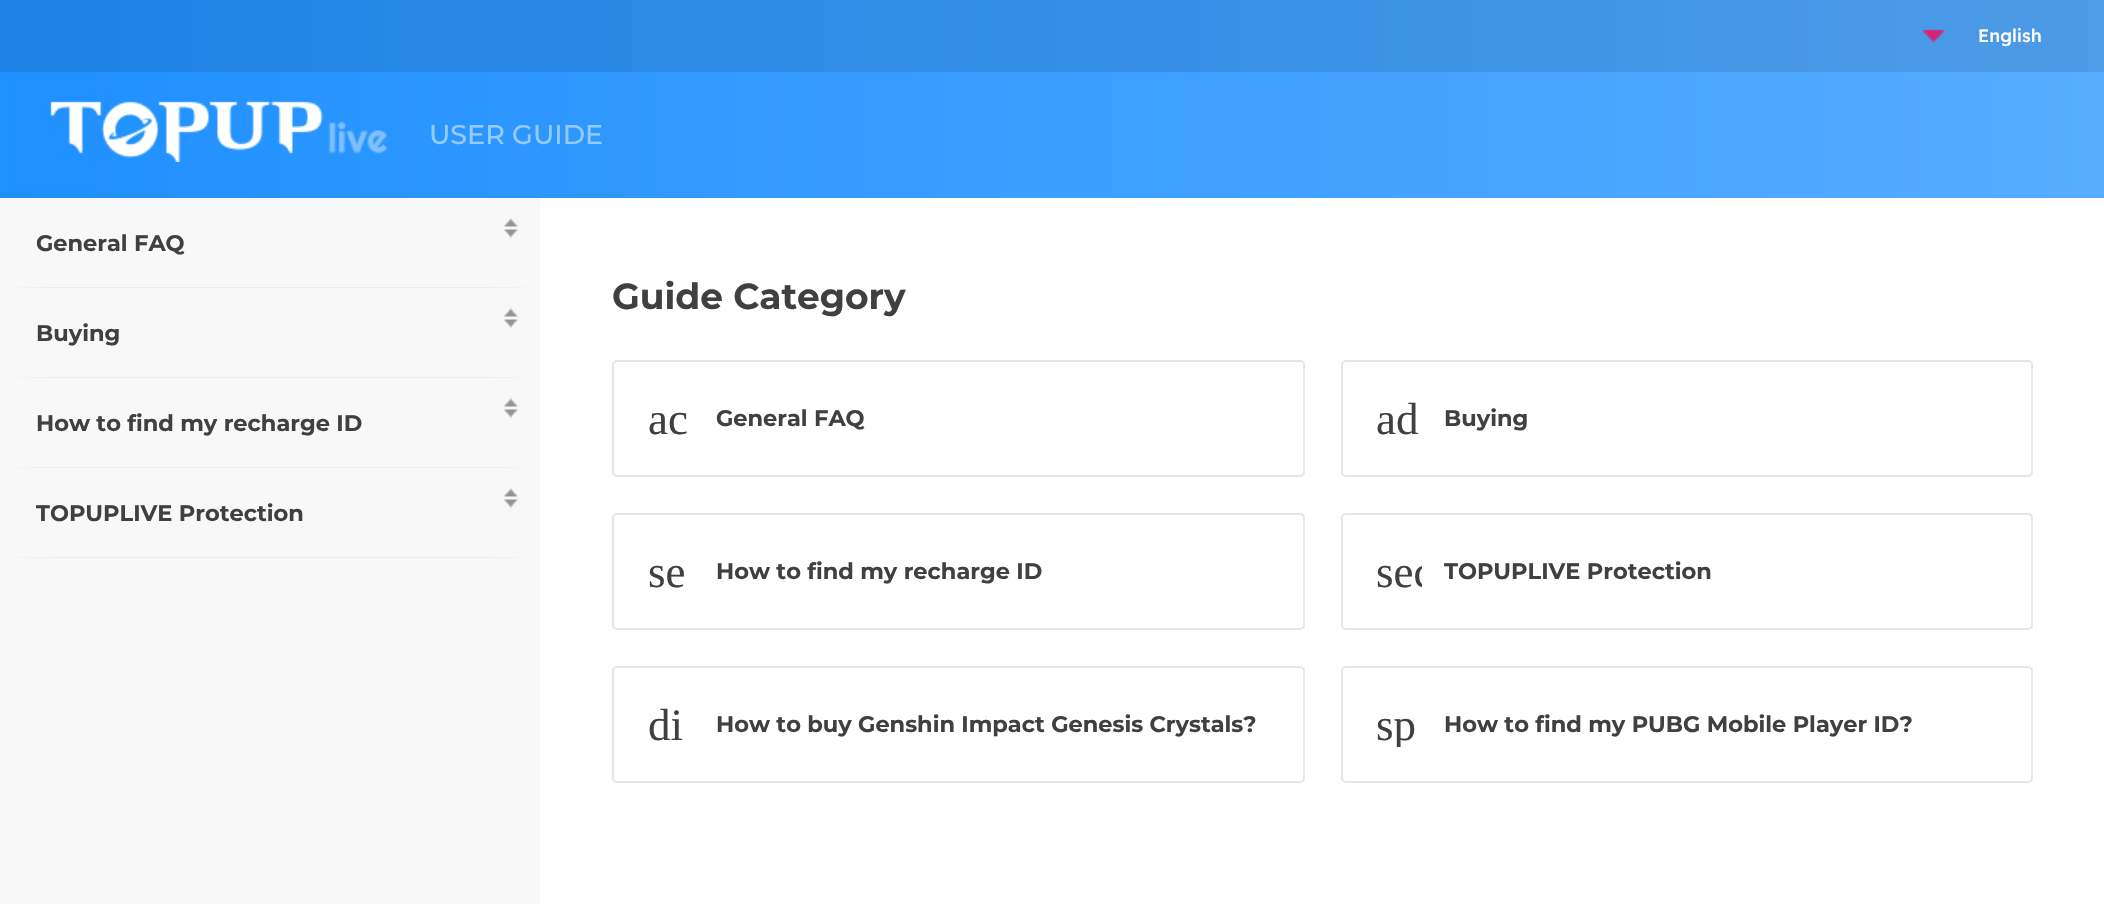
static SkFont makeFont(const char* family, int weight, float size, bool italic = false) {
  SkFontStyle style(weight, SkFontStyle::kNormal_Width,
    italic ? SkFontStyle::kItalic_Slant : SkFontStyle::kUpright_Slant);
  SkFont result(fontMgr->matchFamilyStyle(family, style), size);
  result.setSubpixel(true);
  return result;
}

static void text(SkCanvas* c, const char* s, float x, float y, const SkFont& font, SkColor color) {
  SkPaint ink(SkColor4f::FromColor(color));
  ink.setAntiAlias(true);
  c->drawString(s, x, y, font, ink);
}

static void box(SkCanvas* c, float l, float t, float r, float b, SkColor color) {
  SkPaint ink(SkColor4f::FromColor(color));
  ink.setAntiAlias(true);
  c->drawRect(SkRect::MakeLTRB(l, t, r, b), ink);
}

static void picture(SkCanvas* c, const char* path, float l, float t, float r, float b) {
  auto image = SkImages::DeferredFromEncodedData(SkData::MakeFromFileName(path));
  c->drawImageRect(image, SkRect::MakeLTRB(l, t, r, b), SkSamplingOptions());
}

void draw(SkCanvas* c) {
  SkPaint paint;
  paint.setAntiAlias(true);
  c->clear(0xffffffff);
  {
    const SkColor colors[] = {0xff1f90ff, 0xff57acff};
    const float stops[] = {0, 1};
    const SkPoint ends[] = {{0, 99}, {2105, 99}};
    paint.setShader(SkGradientShader::MakeLinear(ends, colors, stops, 2, SkTileMode::kClamp));
    paint.setAlpha(255);
  }
  c->drawRect(SkRect::MakeLTRB(0, 72, 2104, 198), paint);
  {
    const SkColor colors[] = {0xff1c82e6, 0xff4e9be6};
    const float stops[] = {0, 1};
    const SkPoint ends[] = {{0, 99}, {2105, 99}};
    paint.setShader(SkGradientShader::MakeLinear(ends, colors, stops, 2, SkTileMode::kClamp));
    paint.setAlpha(255);
  }
  c->drawRect(SkRect::MakeLTRB(0, 0, 2104, 72), paint);
  picture(c, "img_01.png", 1921, 29, 1946, 43);
  SkFont face1 = makeFont("Readex Pro", 500, 18);
  text(c, "English", 1978, 42, face1, 0xffffffff);
  picture(c, "img_02.png", 50, 101, 388, 162);
  SkFont face2 = makeFont("Montserrat", 500, 27);
  text(c, "USER GUIDE", 429, 144, face2, 0xff96cbff);
  box(c, 0, 198, 540, 904, 0xfff8f8f8);
  {
    const SkColor colors[] = {0xfff8f8f8, 0xffececec, 0xffececec, 0xfff8f8f8};
    const float stops[] = {0, 0.1f, 0.9f, 1};
    const SkPoint ends[] = {{0, 287}, {540, 287}};
    paint.setShader(SkGradientShader::MakeLinear(ends, colors, stops, 4, SkTileMode::kClamp));
    paint.setAlpha(255);
  }
  c->drawRect(SkRect::MakeLTRB(11, 287, 529, 288), paint);
  picture(c, "img_03.png", 503, 217, 518, 239);
  SkFont face3 = makeFont("Montserrat", 700, 22.5f);
  text(c, "General FAQ", 36, 251, face3, 0xff404040);
  {
    const SkColor colors[] = {0xfff8f8f8, 0xffececec, 0xffececec, 0xfff8f8f8};
    const float stops[] = {0, 0.1f, 0.9f, 1};
    const SkPoint ends[] = {{0, 377}, {540, 377}};
    paint.setShader(SkGradientShader::MakeLinear(ends, colors, stops, 4, SkTileMode::kClamp));
    paint.setAlpha(255);
  }
  c->drawRect(SkRect::MakeLTRB(11, 377, 529, 378), paint);
  picture(c, "img_03.png", 503, 307, 518, 329);
  text(c, "Buying", 36, 341, face3, 0xff404040);
  {
    const SkColor colors[] = {0xfff8f8f8, 0xffececec, 0xffececec, 0xfff8f8f8};
    const float stops[] = {0, 0.1f, 0.9f, 1};
    const SkPoint ends[] = {{0, 467}, {540, 467}};
    paint.setShader(SkGradientShader::MakeLinear(ends, colors, stops, 4, SkTileMode::kClamp));
    paint.setAlpha(255);
  }
  c->drawRect(SkRect::MakeLTRB(11, 467, 529, 468), paint);
  picture(c, "img_03.png", 503, 397, 518, 419);
  text(c, "How to find my recharge ID", 36, 431, face3, 0xff404040);
  {
    const SkColor colors[] = {0xfff8f8f8, 0xffececec, 0xffececec, 0xfff8f8f8};
    const float stops[] = {0, 0.1f, 0.9f, 1};
    const SkPoint ends[] = {{0, 557}, {540, 557}};
    paint.setShader(SkGradientShader::MakeLinear(ends, colors, stops, 4, SkTileMode::kClamp));
    paint.setAlpha(255);
  }
  c->drawRect(SkRect::MakeLTRB(11, 557, 529, 558), paint);
  picture(c, "img_03.png", 503, 487, 518, 509);
  text(c, "TOPUPLIVE Protection", 36, 521, face3, 0xff404040);
  SkFont face4 = makeFont("Montserrat", 700, 36);
  text(c, "Guide Category", 612, 309, face4, 0xff404040);
  paint.setStyle(SkPaint::kStroke_Style);
  paint.setStrokeWidth(2);
  paint.setShader(nullptr);
  paint.setColor(0xffe6e6e6);
  c->drawRoundRect(SkRect::MakeLTRB(613, 361, 1304, 476), 4, 4, paint);
  SkFont face5 = makeFont("Liberation Serif", 400, 45);
  text(c, "ac", 648, 434, face5, 0xff404040);
  text(c, "General FAQ", 716, 426, face3, 0xff404040);
  c->drawRoundRect(SkRect::MakeLTRB(1342, 361, 2032, 476), 4, 4, paint);
  text(c, "ad", 1376, 434, face5, 0xff404040);
  text(c, "Buying", 1444, 426, face3, 0xff404040);
  c->drawRoundRect(SkRect::MakeLTRB(613, 514, 1304, 629), 4, 4, paint);
  text(c, "se", 648, 587, face5, 0xff404040);
  text(c, "How to find my recharge ID", 716, 579, face3, 0xff404040);
  c->drawRoundRect(SkRect::MakeLTRB(1342, 514, 2032, 629), 4, 4, paint);
  c->save();
  c->clipRect(SkRect::MakeLTRB(1377, 549, 1422, 594));
  text(c, "sec", 1376, 587, face5, 0xff404040);
  c->restore();
  text(c, "TOPUPLIVE Protection", 1444, 579, face3, 0xff404040);
  c->drawRoundRect(SkRect::MakeLTRB(613, 667, 1304, 782), 4, 4, paint);
  text(c, "di", 648, 740, face5, 0xff404040);
  text(c, "How to buy Genshin Impact Genesis Crystals?", 716, 732, face3, 0xff404040);
  c->drawRoundRect(SkRect::MakeLTRB(1342, 667, 2032, 782), 4, 4, paint);
  c->save();
  c->clipRect(SkRect::MakeLTRB(1377, 702, 1422, 747));
  text(c, "sp", 1376, 740, face5, 0xff404040);
  c->restore();
  text(c, "How to find my PUBG Mobile Player ID?", 1444, 732, face3, 0xff404040);
}
